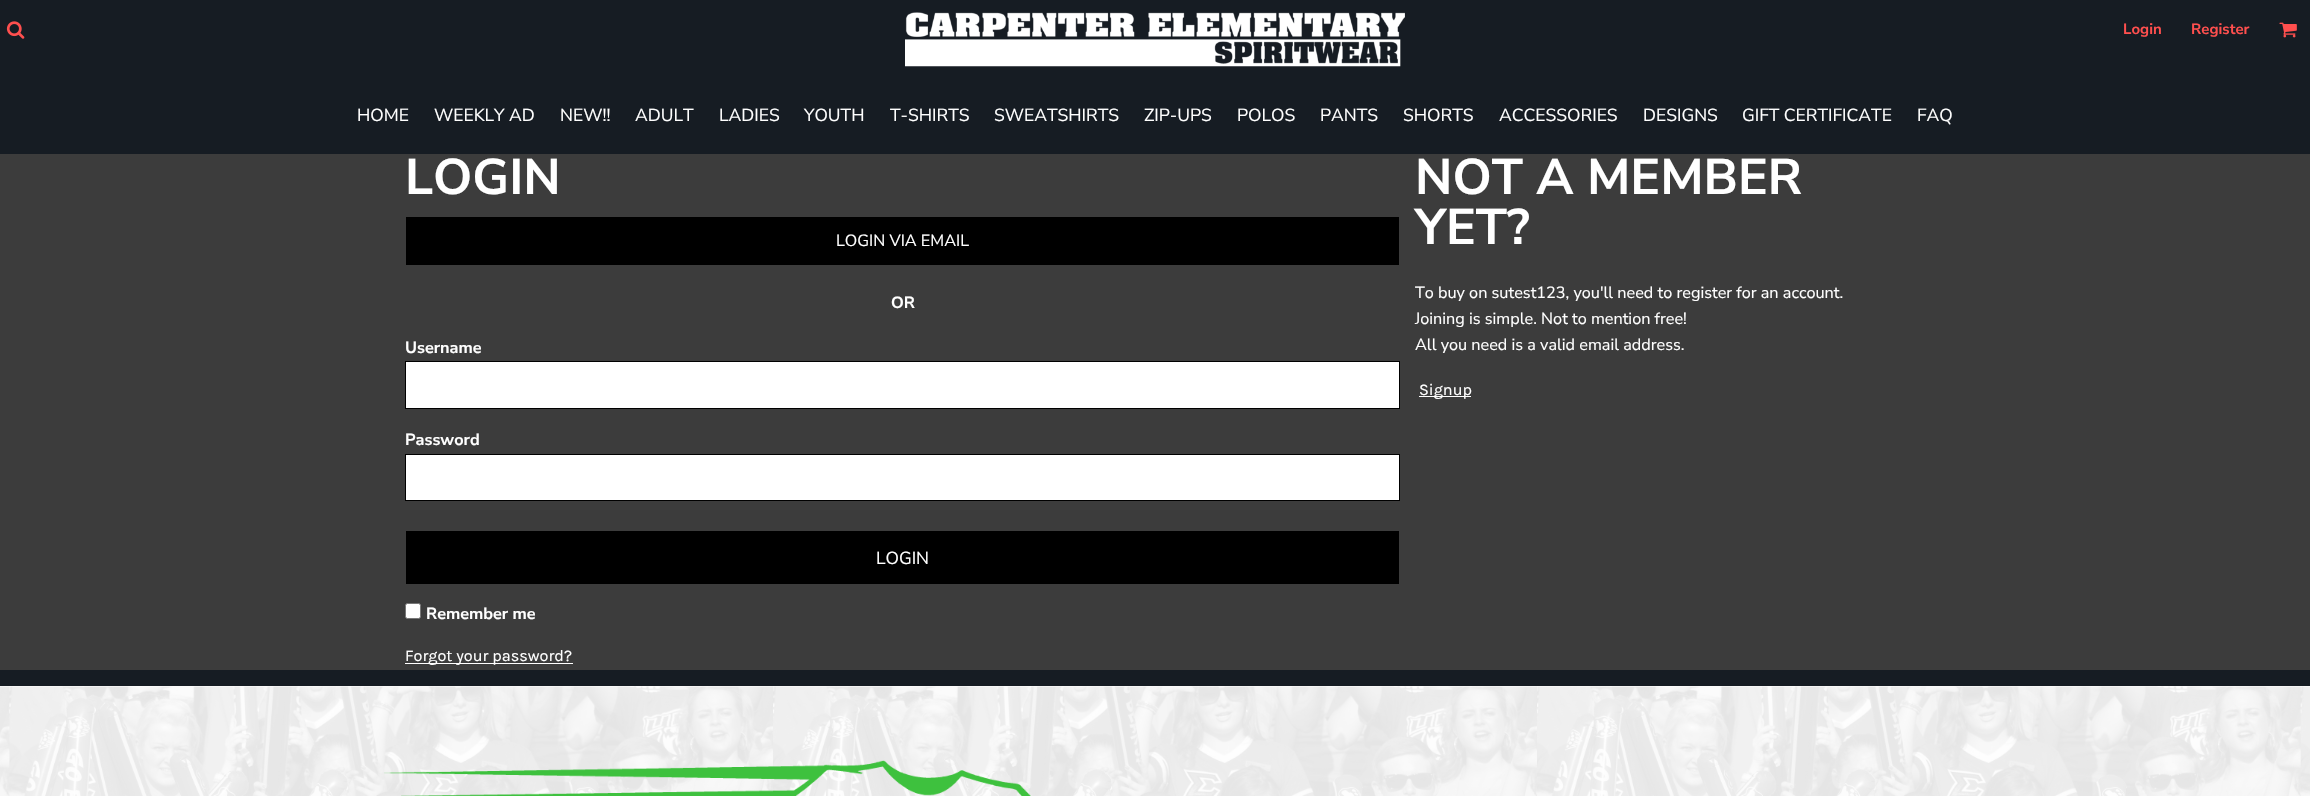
static SkFont makeFont(const char* family, int weight, float size, bool italic = false) {
  SkFontStyle style(weight, SkFontStyle::kNormal_Width,
    italic ? SkFontStyle::kItalic_Slant : SkFontStyle::kUpright_Slant);
  SkFont result(fontMgr->matchFamilyStyle(family, style), size);
  result.setSubpixel(true);
  return result;
}

static void text(SkCanvas* c, const char* s, float x, float y, const SkFont& font, SkColor color) {
  SkPaint ink(SkColor4f::FromColor(color));
  ink.setAntiAlias(true);
  c->drawString(s, x, y, font, ink);
}

static void box(SkCanvas* c, float l, float t, float r, float b, SkColor color) {
  SkPaint ink(SkColor4f::FromColor(color));
  ink.setAntiAlias(true);
  c->drawRect(SkRect::MakeLTRB(l, t, r, b), ink);
}

static void picture(SkCanvas* c, const char* path, float l, float t, float r, float b) {
  auto image = SkImages::DeferredFromEncodedData(SkData::MakeFromFileName(path));
  c->drawImageRect(image, SkRect::MakeLTRB(l, t, r, b), SkSamplingOptions());
}

void draw(SkCanvas* c) {
  SkPaint paint;
  paint.setAntiAlias(true);
  c->clear(0xff3c3c3c);
  box(c, 0, 0, 2310, 154, 0xff161c23);
  picture(c, "img_01.png", 6, 21, 25, 39);
  picture(c, "img_02.png", 905, 12, 1405, 67);
  SkFont face1 = makeFont("Nunito Sans", 700, 15);
  text(c, "Login", 2123, 34, face1, 0xffff4f4e);
  text(c, "Register", 2191, 34, face1, 0xffff4f4e);
  picture(c, "img_03.png", 2279, 22, 2297, 38);
  SkFont face2 = makeFont("Nunito Sans", 400, 17.5f);
  text(c, "HOME", 357, 121, face2, 0xffffffff);
  text(c, "WEEKLY AD", 434, 121, face2, 0xffffffff);
  text(c, "NEW!!", 560, 121, face2, 0xffffffff);
  text(c, "ADULT", 635, 121, face2, 0xffffffff);
  text(c, "LADIES", 719, 121, face2, 0xffffffff);
  text(c, "YOUTH", 804, 121, face2, 0xffffffff);
  text(c, "T-SHIRTS", 890, 121, face2, 0xffffffff);
  text(c, "SWEATSHIRTS", 994, 121, face2, 0xffffffff);
  text(c, "ZIP-UPS", 1144, 121, face2, 0xffffffff);
  text(c, "POLOS", 1237, 121, face2, 0xffffffff);
  text(c, "PANTS", 1320, 121, face2, 0xffffffff);
  text(c, "SHORTS", 1403, 121, face2, 0xffffffff);
  text(c, "ACCESSORIES", 1499, 121, face2, 0xffffffff);
  text(c, "DESIGNS", 1643, 121, face2, 0xffffffff);
  text(c, "GIFT CERTIFICATE", 1742, 121, face2, 0xffffffff);
  text(c, "FAQ", 1917, 121, face2, 0xffffffff);
  SkFont face3 = makeFont("Nunito Sans", 700, 50);
  text(c, "LOGIN", 405, 194, face3, 0xffffffff);
  box(c, 406, 217, 1399, 265, 0xff000000);
  SkFont face4 = makeFont("Nunito Sans", 400, 16.25f);
  text(c, "LOGIN VIA EMAIL", 836, 246, face4, 0xffffffff);
  SkFont face5 = makeFont("Nunito Sans", 700, 16.25f);
  text(c, "OR", 891, 308, face5, 0xffffffff);
  text(c, "Username", 405, 353, face5, 0xffffffff);
  paint.setColor(0xffffffff);
  c->drawRect(SkRect::MakeLTRB(405.5f, 361.5f, 1399.5f, 408.5f), paint);
  paint.setStyle(SkPaint::kStroke_Style);
  paint.setStrokeWidth(1);
  paint.setColor(0xff000000);
  c->drawRect(SkRect::MakeLTRB(405.5f, 361.5f, 1399.5f, 408.5f), paint);
  text(c, "Password", 405, 445, face5, 0xffffffff);
  paint.setStyle(SkPaint::kFill_Style);
  paint.setColor(0xffffffff);
  c->drawRect(SkRect::MakeLTRB(405.5f, 454.5f, 1399.5f, 500.5f), paint);
  paint.setStyle(SkPaint::kStroke_Style);
  paint.setColor(0xff000000);
  c->drawRect(SkRect::MakeLTRB(405.5f, 454.5f, 1399.5f, 500.5f), paint);
  box(c, 406, 531, 1399, 584, 0xff000000);
  text(c, "LOGIN", 876, 564, face2, 0xffffffff);
  paint.setStyle(SkPaint::kFill_Style);
  paint.setColor(0xffffffff);
  c->drawRoundRect(SkRect::MakeLTRB(405.5f, 603.5f, 420.5f, 618.5f), 2, 2, paint);
  paint.setStyle(SkPaint::kStroke_Style);
  paint.setColor(0xff767676);
  c->drawRoundRect(SkRect::MakeLTRB(405.5f, 603.5f, 420.5f, 618.5f), 2, 2, paint);
  text(c, "Remember me", 426, 619, face5, 0xffffffff);
  box(c, 405, 663, 573, 664, 0xffffffff);
  SkFont face6 = makeFont("Karla", 400, 16.25f);
  text(c, "Forgot your password?", 405, 661, face6, 0xffffffff);
  text(c, "NOT A MEMBER", 1415, 194, face3, 0xffffffff);
  text(c, "YET?", 1415, 244, face3, 0xffffffff);
  text(c, "To buy on sutest123, you'll need to register for an account.", 1415, 298, face4, 0xffffffff);
  text(c, "Joining is simple. Not to mention free!", 1415, 324, face4, 0xffffffff);
  text(c, "All you need is a valid email address.", 1415, 350, face4, 0xffffffff);
  box(c, 1419, 396, 1471, 397, 0xffffffff);
  text(c, "Signup", 1419, 395, face6, 0xffffffff);
  box(c, 0, 670, 2310, 686, 0xff161c23);
  box(c, 0, 686, 2310, 796, 0xffffffff);
  picture(c, "img_04.png", 0, 686, 2310, 796);
  picture(c, "img_05.png", 384, 760, 1031, 796);
}
